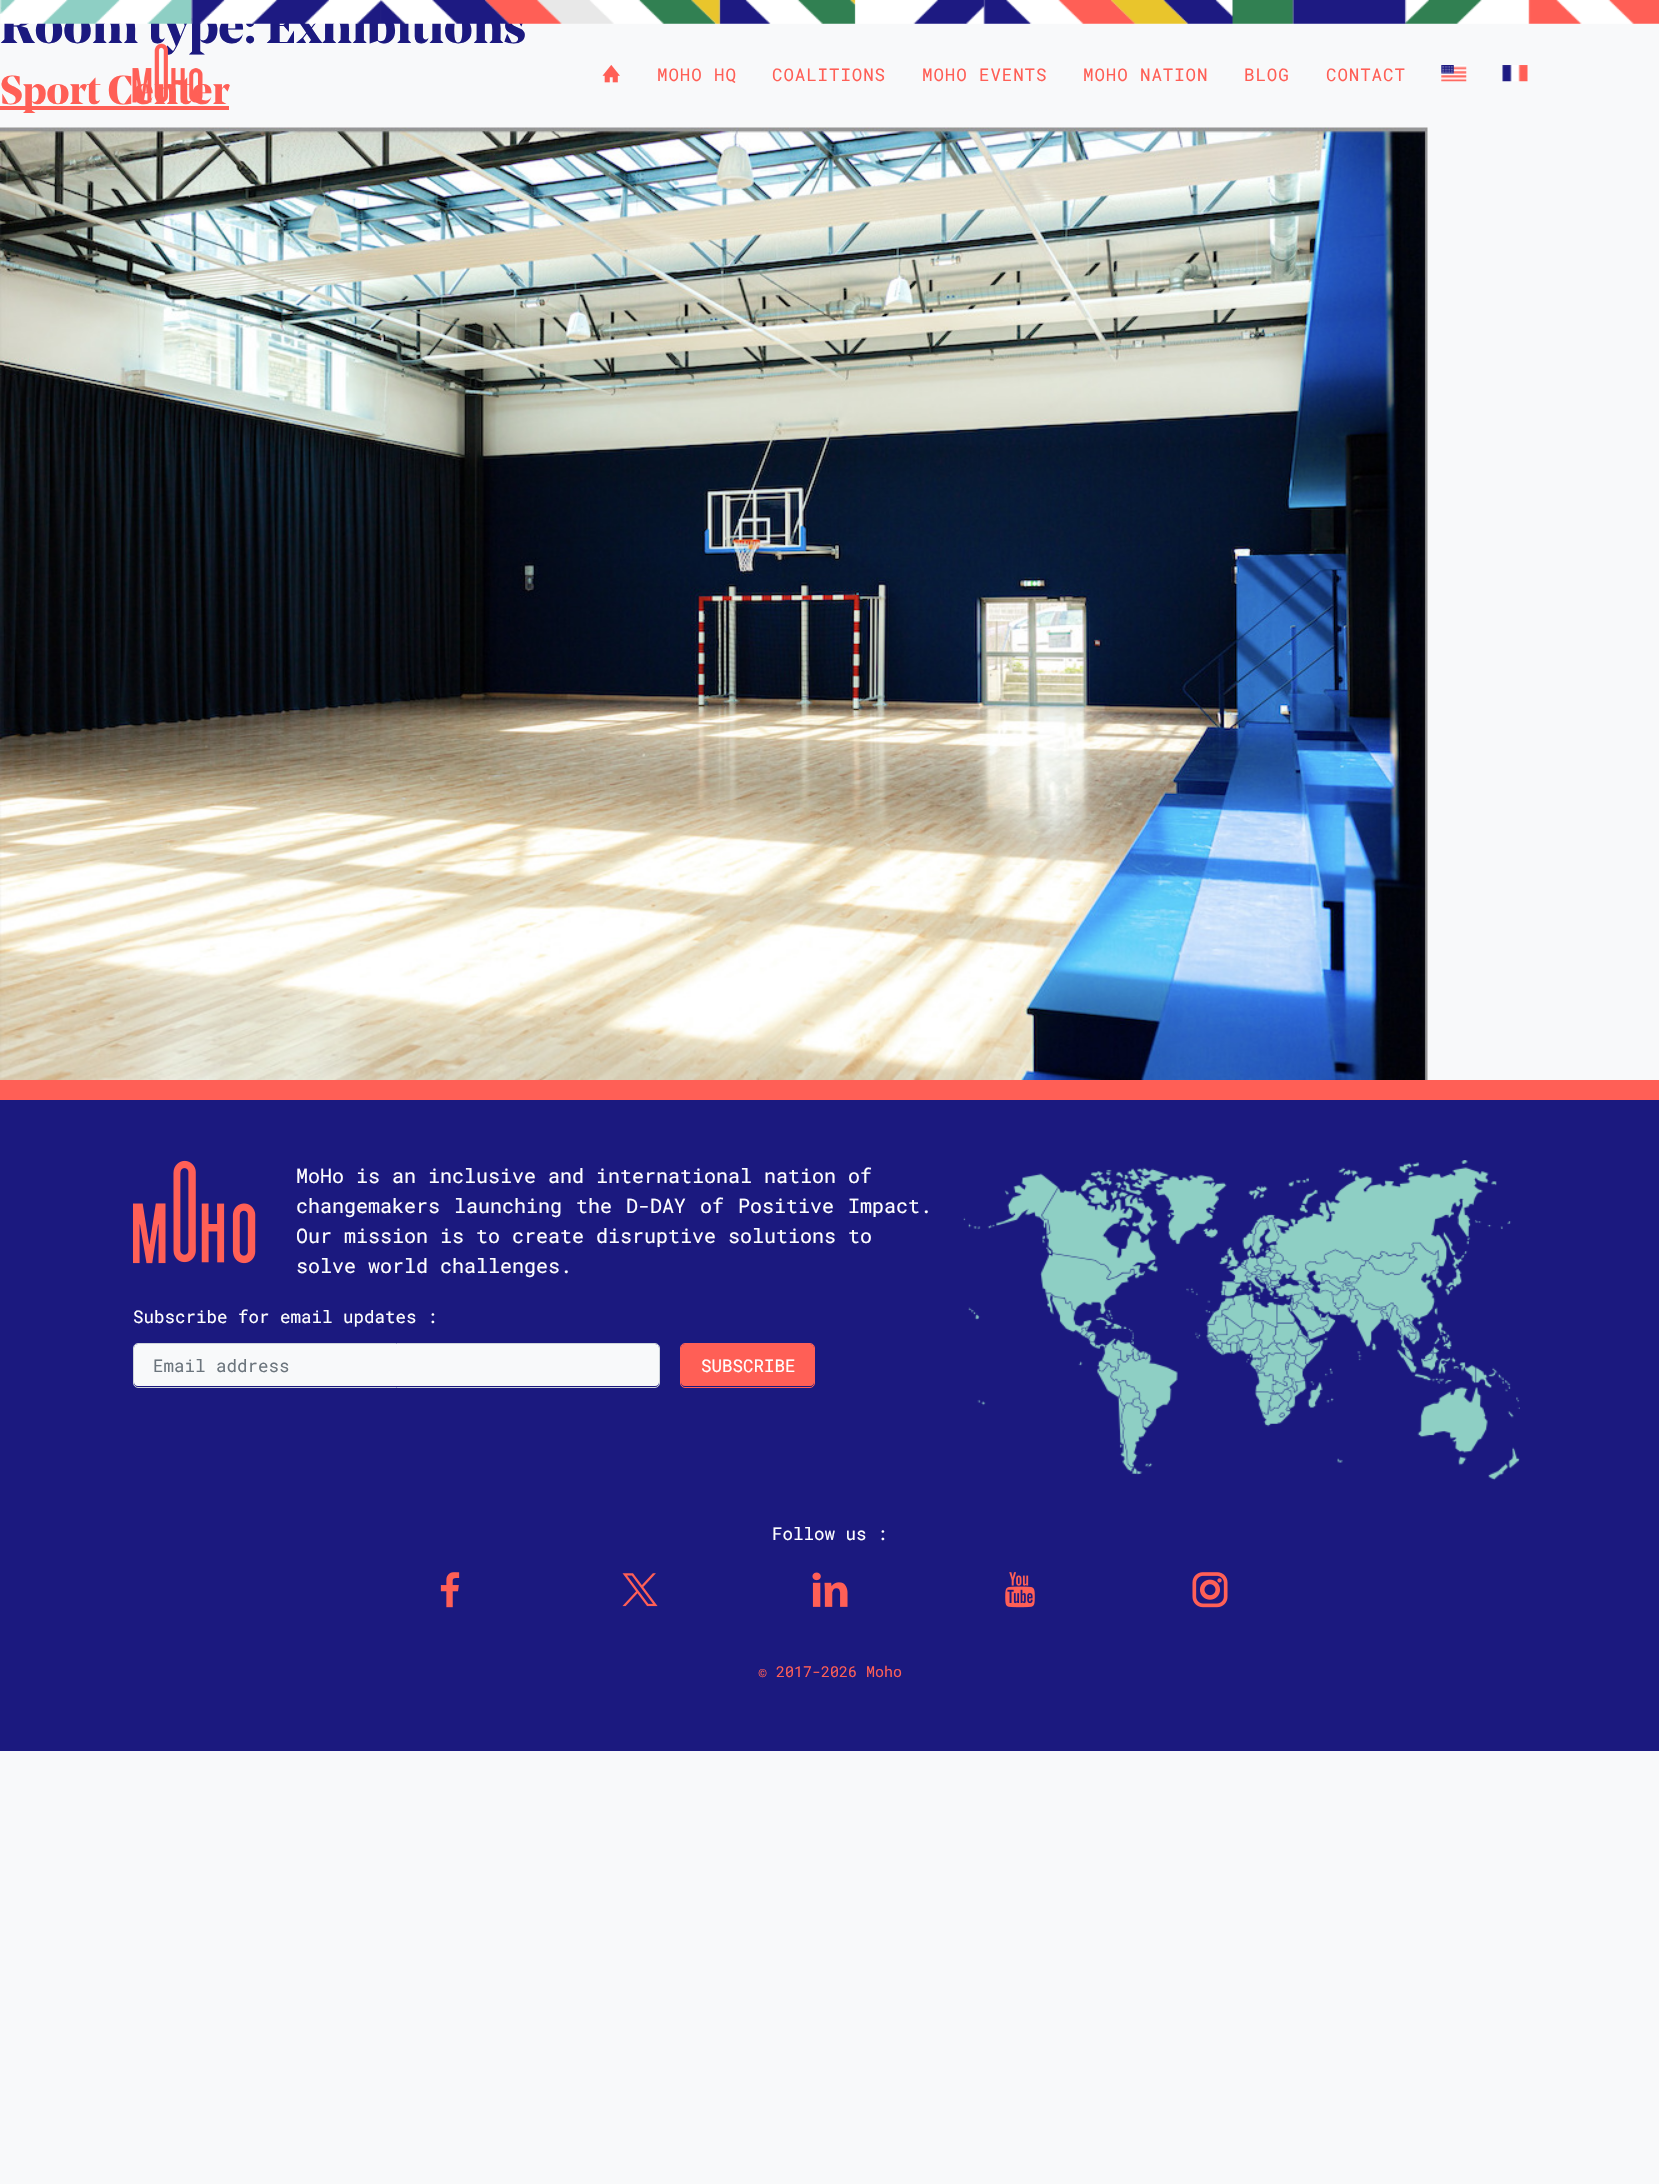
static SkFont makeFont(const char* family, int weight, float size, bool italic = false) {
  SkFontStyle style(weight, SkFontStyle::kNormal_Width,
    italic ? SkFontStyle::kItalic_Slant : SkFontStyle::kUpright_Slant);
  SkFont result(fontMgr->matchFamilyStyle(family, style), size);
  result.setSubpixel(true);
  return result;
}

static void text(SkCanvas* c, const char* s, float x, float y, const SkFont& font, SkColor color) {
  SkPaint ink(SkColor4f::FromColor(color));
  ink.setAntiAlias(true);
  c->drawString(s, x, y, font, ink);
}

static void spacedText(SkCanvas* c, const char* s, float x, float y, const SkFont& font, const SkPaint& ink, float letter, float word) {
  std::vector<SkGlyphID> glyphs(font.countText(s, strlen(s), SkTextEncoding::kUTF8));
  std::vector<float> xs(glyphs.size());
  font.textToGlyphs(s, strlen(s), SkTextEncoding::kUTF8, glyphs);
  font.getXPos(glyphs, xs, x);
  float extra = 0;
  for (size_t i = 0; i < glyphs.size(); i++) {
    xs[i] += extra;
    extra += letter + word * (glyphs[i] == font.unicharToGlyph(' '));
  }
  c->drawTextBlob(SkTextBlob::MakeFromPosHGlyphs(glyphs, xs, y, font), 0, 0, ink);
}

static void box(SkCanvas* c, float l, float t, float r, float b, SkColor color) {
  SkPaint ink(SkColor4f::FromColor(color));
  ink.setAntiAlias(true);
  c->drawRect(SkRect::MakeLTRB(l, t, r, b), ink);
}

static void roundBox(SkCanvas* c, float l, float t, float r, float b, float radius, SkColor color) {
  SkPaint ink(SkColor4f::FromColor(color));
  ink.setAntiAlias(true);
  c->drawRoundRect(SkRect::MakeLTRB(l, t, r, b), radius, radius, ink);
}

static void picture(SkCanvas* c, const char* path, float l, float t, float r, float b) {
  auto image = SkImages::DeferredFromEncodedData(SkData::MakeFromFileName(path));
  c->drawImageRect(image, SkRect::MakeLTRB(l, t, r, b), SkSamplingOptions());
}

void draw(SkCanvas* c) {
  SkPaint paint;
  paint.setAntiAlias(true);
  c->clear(0xfff8f9fa);
  SkFont face1 = makeFont("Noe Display", 700, 50);
  text(c, "Room type: Exhibitions", 0, 43, face1, 0xff1b197f);
  box(c, 0, 106, 229, 110, 0xffff5f56);
  SkFont face2 = makeFont("Noe Display", 700, 40);
  text(c, "Sport Center", 0, 104, face2, 0xffff5f56);
  picture(c, "img_01.png", 0, 127, 1428, 1080);
  box(c, 0, 1080, 1659, 1100, 0xffff5f56);
  picture(c, "img_02.png", 0, 0, 1659, 24);
  picture(c, "img_03.png", 132, 43, 203, 103);
  picture(c, "img_04.png", 602, 65, 620, 83);
  SkFont face3 = makeFont("Roboto Mono", 400, 17.5f);
  paint.setColor(0xffff5f56);
  spacedText(c, "MOHO HQ", 657, 81, face3, paint, 0.9f, 0);
  spacedText(c, "COALITIONS", 772, 81, face3, paint, 0.9f, 0);
  spacedText(c, "MOHO EVENTS", 922, 81, face3, paint, 0.9f, 0);
  spacedText(c, "MOHO NATION", 1083, 81, face3, paint, 0.9f, 0);
  spacedText(c, "BLOG", 1244, 81, face3, paint, 0.9f, 0);
  spacedText(c, "CONTACT", 1326, 81, face3, paint, 0.9f, 0);
  picture(c, "img_05.png", 1441, 65, 1467, 82);
  picture(c, "img_06.png", 1502, 65, 1528, 82);
  box(c, 0, 1100, 1659, 1751, 0xff1b197f);
  picture(c, "img_07.png", 133, 1160, 256, 1264);
  SkFont face4 = makeFont("Roboto Mono", 400, 20);
  text(c, "MoHo is an inclusive and international nation of", 296, 1183, face4, 0xffffffff);
  paint.setColor(0xffffffff);
  spacedText(c, "changemakers launching the D-DAY of Positive Impact.", 296, 1213, face4, paint, 0, 2);
  text(c, "Our mission is to create disruptive solutions to", 296, 1243, face4, 0xffffffff);
  text(c, "solve world challenges.", 296, 1273, face4, 0xffffffff);
  text(c, "Subscribe for email updates :", 133, 1323, face3, 0xffffffff);
  roundBox(c, 134, 1344, 659, 1386, 4, 0xfff8f9fa);
  paint.setStyle(SkPaint::kStroke_Style);
  paint.setStrokeWidth(1);
  paint.setColor(0xffced4da);
  c->drawRoundRect(SkRect::MakeLTRB(133.5f, 1343.5f, 659.5f, 1387.5f), 4.5f, 4.5f, paint);
  text(c, "Email address", 153, 1372, face3, 0xff6c757d);
  roundBox(c, 681, 1344, 814, 1386, 4, 0xffff5f56);
  paint.setColor(0xffff5f56);
  c->drawRoundRect(SkRect::MakeLTRB(680.5f, 1343.5f, 814.5f, 1387.5f), 4.5f, 4.5f, paint);
  text(c, "SUBSCRIBE", 701, 1372, face3, 0xffffffff);
  picture(c, "img_08.png", 963, 1160, 1520, 1480);
  text(c, "Follow us :", 772, 1540, face3, 0xffffffff);
  picture(c, "img_09.png", 440, 1572, 460, 1608);
  picture(c, "img_10.png", 622, 1573, 658, 1607);
  picture(c, "img_11.png", 812, 1572, 848, 1607);
  picture(c, "img_12.png", 1005, 1572, 1035, 1608);
  picture(c, "img_13.png", 1192, 1572, 1228, 1608);
  SkFont face5 = makeFont("Roboto Mono", 400, 15);
  text(c, "© 2017-2026 Moho", 758, 1677, face5, 0xffff5f56);
}
